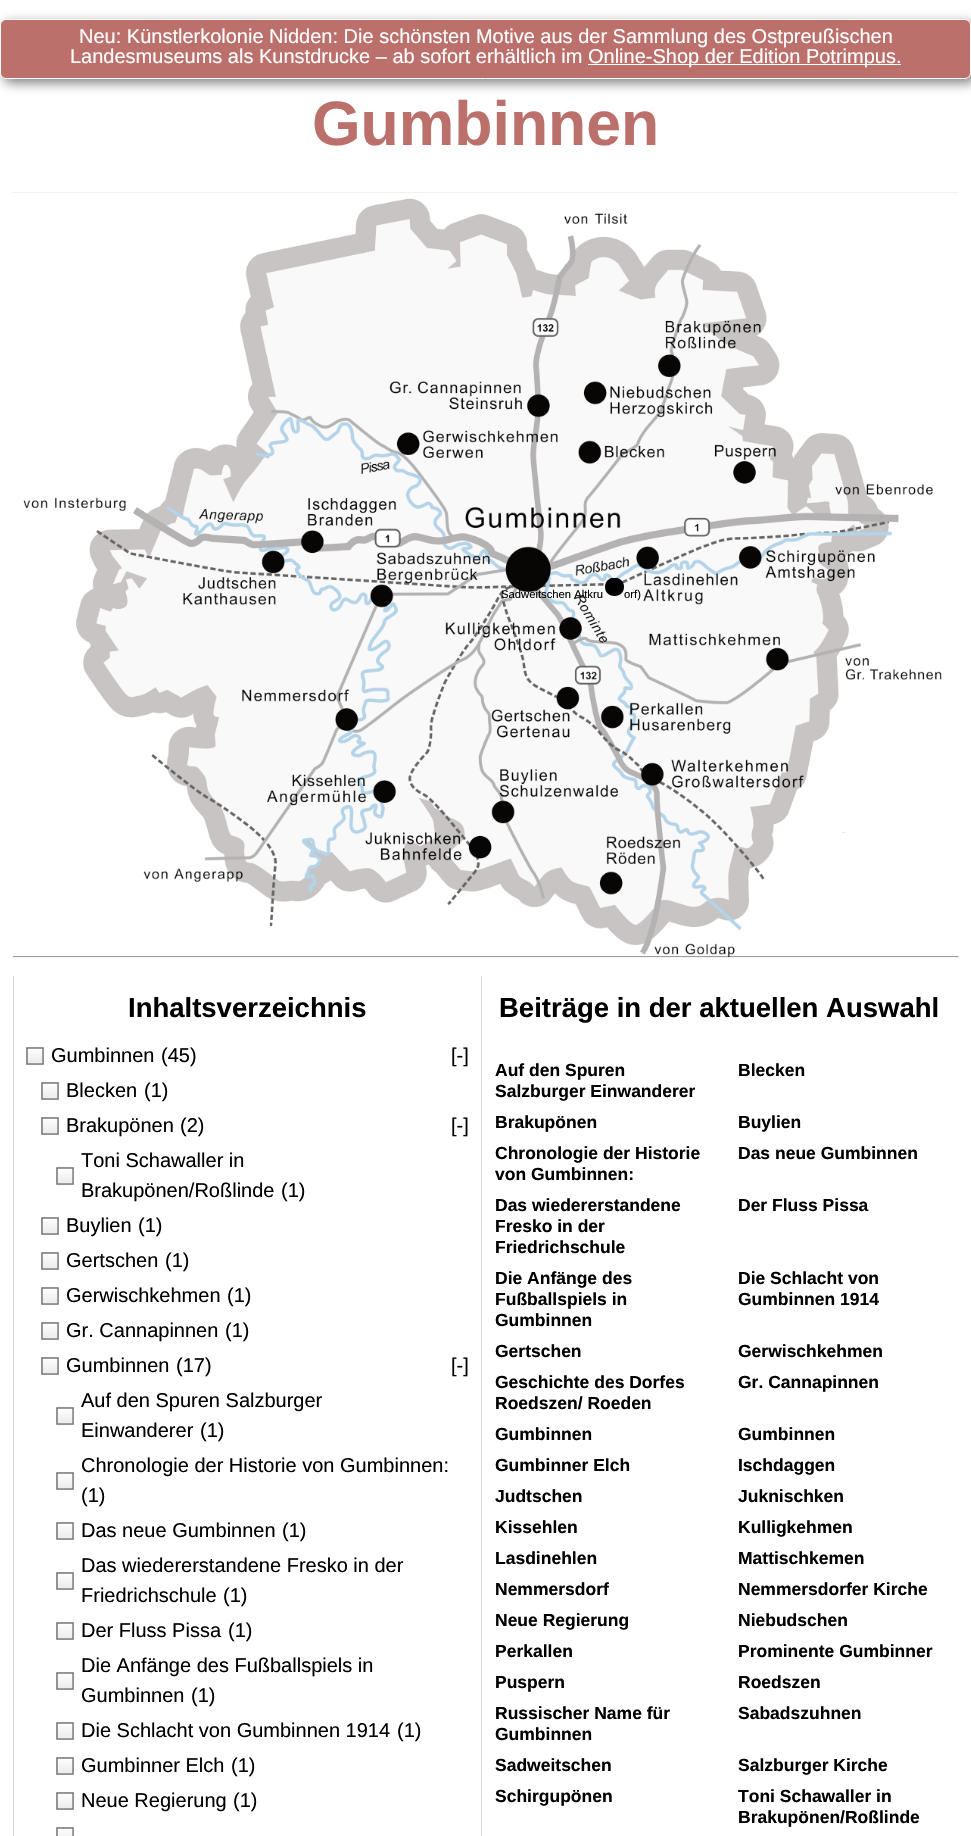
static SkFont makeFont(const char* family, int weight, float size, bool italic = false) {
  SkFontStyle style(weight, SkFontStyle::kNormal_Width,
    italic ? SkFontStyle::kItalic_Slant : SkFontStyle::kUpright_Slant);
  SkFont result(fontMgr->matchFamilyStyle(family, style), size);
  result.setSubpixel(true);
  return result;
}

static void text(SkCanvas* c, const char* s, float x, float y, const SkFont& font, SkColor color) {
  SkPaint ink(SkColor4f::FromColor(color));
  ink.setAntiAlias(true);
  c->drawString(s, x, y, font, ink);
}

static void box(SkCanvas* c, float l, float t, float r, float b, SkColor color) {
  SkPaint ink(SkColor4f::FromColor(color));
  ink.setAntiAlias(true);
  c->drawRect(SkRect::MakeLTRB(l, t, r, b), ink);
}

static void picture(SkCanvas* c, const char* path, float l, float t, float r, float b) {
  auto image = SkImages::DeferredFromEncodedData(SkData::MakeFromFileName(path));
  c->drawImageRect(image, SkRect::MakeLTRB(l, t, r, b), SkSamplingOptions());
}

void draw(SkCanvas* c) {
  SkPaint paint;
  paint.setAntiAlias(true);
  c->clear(0xffffffff);
  paint.setColor(0x80000000);
  paint.setMaskFilter(SkMaskFilter::MakeBlur(kNormal_SkBlurStyle, 6));
  c->drawRoundRect(SkRect::MakeLTRB(4, 23, 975, 83), 6, 6, paint);
  paint.setMaskFilter(nullptr);
  paint.setColor(0xffbc706c);
  c->drawRoundRect(SkRect::MakeLTRB(0.5f, 19.5f, 970.5f, 78.5f), 5.5f, 5.5f, paint);
  paint.setStyle(SkPaint::kStroke_Style);
  paint.setStrokeWidth(1);
  paint.setColor(0xffffffff);
  c->drawRoundRect(SkRect::MakeLTRB(0.5f, 19.5f, 970.5f, 78.5f), 5.5f, 5.5f, paint);
  SkFont face1 = makeFont("Liberation Sans", 400, 20);
  text(c, "Neu: Künstlerkolonie Nidden: Die schönsten Motive aus der Sammlung des Ostpreußischen", 79, 43, face1, 0xffffffff);
  text(c, "Landesmuseums als Kunstdrucke – ab sofort erhältlich im", 70, 63, face1, 0xffffffff);
  box(c, 588, 64, 901, 65, 0xffffffff);
  text(c, "Online-Shop der Edition Potrimpus.", 588, 63, face1, 0xffffffff);
  SkFont face2 = makeFont("Liberation Sans", 700, 62.5f);
  text(c, "Gumbinnen", 312, 145, face2, 0xffbc706c);
  picture(c, "img_01.png", 12, 192, 959, 958);
  c->save();
  c->clipRect(SkRect::MakeLTRB(605, 578, 624, 596));
  paint.setStyle(SkPaint::kFill_Style);
  paint.setColor(0xff000000);
  c->drawPath(SkPathBuilder().moveTo(624, 587).cubicTo(624, 599, 605, 599, 605, 587).cubicTo(605, 574.5f, 624, 574.5f, 624, 587).close().detach(), paint);
  c->restore();
  SkFont face3 = makeFont("Liberation Sans", 400, 11.25f);
  text(c, "Sadweitschen Altkru", 501, 598, face3, 0xff000000);
  text(c, "orf)", 624, 598, face3, 0xff000000);
  box(c, 481, 976, 482, 1836, 0xffd7d7d7);
  box(c, 13, 976, 14, 1836, 0xffd7d7d7);
  SkFont face4 = makeFont("Liberation Sans", 700, 27.5f);
  text(c, "Inhaltsverzeichnis", 128, 1017, face4, 0xff000000);
  picture(c, "img_02.png", 26, 1047, 44, 1065);
  text(c, "Gumbinnen", 51, 1062, face1, 0xff000000);
  text(c, "(45)", 161, 1062, face1, 0xff000000);
  text(c, "[-]", 451, 1062, face1, 0xff000000);
  picture(c, "img_02.png", 41, 1082, 59, 1100);
  text(c, "Blecken", 66, 1097, face1, 0xff000000);
  text(c, "(1)", 144, 1097, face1, 0xff000000);
  picture(c, "img_02.png", 41, 1117, 59, 1135);
  text(c, "Brakupönen", 66, 1132, face1, 0xff000000);
  text(c, "(2)", 180, 1132, face1, 0xff000000);
  text(c, "[-]", 451, 1132, face1, 0xff000000);
  picture(c, "img_02.png", 56, 1167, 74, 1185);
  text(c, "Toni Schawaller in", 81, 1167, face1, 0xff000000);
  text(c, "Brakupönen/Roßlinde", 81, 1197, face1, 0xff000000);
  text(c, "(1)", 281, 1197, face1, 0xff000000);
  picture(c, "img_02.png", 41, 1217, 59, 1235);
  text(c, "Buylien", 66, 1232, face1, 0xff000000);
  text(c, "(1)", 138, 1232, face1, 0xff000000);
  picture(c, "img_02.png", 41, 1252, 59, 1270);
  text(c, "Gertschen", 66, 1267, face1, 0xff000000);
  text(c, "(1)", 165, 1267, face1, 0xff000000);
  picture(c, "img_02.png", 41, 1287, 59, 1305);
  text(c, "Gerwischkehmen", 66, 1302, face1, 0xff000000);
  text(c, "(1)", 227, 1302, face1, 0xff000000);
  picture(c, "img_02.png", 41, 1322, 59, 1340);
  text(c, "Gr. Cannapinnen", 66, 1337, face1, 0xff000000);
  text(c, "(1)", 225, 1337, face1, 0xff000000);
  picture(c, "img_02.png", 41, 1357, 59, 1375);
  text(c, "Gumbinnen", 66, 1372, face1, 0xff000000);
  text(c, "(17)", 176, 1372, face1, 0xff000000);
  text(c, "[-]", 451, 1372, face1, 0xff000000);
  picture(c, "img_02.png", 56, 1407, 74, 1425);
  text(c, "Auf den Spuren Salzburger", 81, 1407, face1, 0xff000000);
  text(c, "Einwanderer", 81, 1437, face1, 0xff000000);
  text(c, "(1)", 200, 1437, face1, 0xff000000);
  picture(c, "img_02.png", 56, 1472, 74, 1490);
  text(c, "Chronologie der Historie von Gumbinnen:", 81, 1472, face1, 0xff000000);
  text(c, "(1)", 81, 1502, face1, 0xff000000);
  picture(c, "img_02.png", 56, 1522, 74, 1540);
  text(c, "Das neue Gumbinnen", 81, 1537, face1, 0xff000000);
  text(c, "(1)", 282, 1537, face1, 0xff000000);
  picture(c, "img_02.png", 56, 1572, 74, 1590);
  text(c, "Das wiedererstandene Fresko in der", 81, 1572, face1, 0xff000000);
  text(c, "Friedrichschule", 81, 1602, face1, 0xff000000);
  text(c, "(1)", 223, 1602, face1, 0xff000000);
  picture(c, "img_02.png", 56, 1622, 74, 1640);
  text(c, "Der Fluss Pissa", 81, 1637, face1, 0xff000000);
  text(c, "(1)", 228, 1637, face1, 0xff000000);
  picture(c, "img_02.png", 56, 1672, 74, 1690);
  text(c, "Die Anfänge des Fußballspiels in", 81, 1672, face1, 0xff000000);
  text(c, "Gumbinnen", 81, 1702, face1, 0xff000000);
  text(c, "(1)", 191, 1702, face1, 0xff000000);
  picture(c, "img_02.png", 56, 1722, 74, 1740);
  text(c, "Die Schlacht von Gumbinnen 1914", 81, 1737, face1, 0xff000000);
  text(c, "(1)", 397, 1737, face1, 0xff000000);
  picture(c, "img_02.png", 56, 1757, 74, 1775);
  text(c, "Gumbinner Elch", 81, 1772, face1, 0xff000000);
  text(c, "(1)", 231, 1772, face1, 0xff000000);
  picture(c, "img_02.png", 56, 1792, 74, 1810);
  text(c, "Neue Regierung", 81, 1807, face1, 0xff000000);
  text(c, "(1)", 233, 1807, face1, 0xff000000);
  picture(c, "img_03.png", 56, 1827, 74, 1836);
  text(c, "Beiträge in der aktuellen Auswahl", 499, 1017, face4, 0xff000000);
  SkFont face5 = makeFont("Liberation Sans", 700, 17.5f);
  text(c, "Auf den Spuren", 495, 1076, face5, 0xff000000);
  text(c, "Salzburger Einwanderer", 495, 1097, face5, 0xff000000);
  text(c, "Blecken", 738, 1076, face5, 0xff000000);
  text(c, "Brakupönen", 495, 1128, face5, 0xff000000);
  text(c, "Buylien", 738, 1128, face5, 0xff000000);
  text(c, "Chronologie der Historie", 495, 1159, face5, 0xff000000);
  text(c, "von Gumbinnen:", 495, 1180, face5, 0xff000000);
  text(c, "Das neue Gumbinnen", 738, 1159, face5, 0xff000000);
  text(c, "Das wiedererstandene", 495, 1211, face5, 0xff000000);
  text(c, "Fresko in der", 495, 1232, face5, 0xff000000);
  text(c, "Friedrichschule", 495, 1253, face5, 0xff000000);
  text(c, "Der Fluss Pissa", 738, 1211, face5, 0xff000000);
  text(c, "Die Anfänge des", 495, 1284, face5, 0xff000000);
  text(c, "Fußballspiels in", 495, 1305, face5, 0xff000000);
  text(c, "Gumbinnen", 495, 1326, face5, 0xff000000);
  text(c, "Die Schlacht von", 738, 1284, face5, 0xff000000);
  text(c, "Gumbinnen 1914", 738, 1305, face5, 0xff000000);
  text(c, "Gertschen", 495, 1357, face5, 0xff000000);
  text(c, "Gerwischkehmen", 738, 1357, face5, 0xff000000);
  text(c, "Geschichte des Dorfes", 495, 1388, face5, 0xff000000);
  text(c, "Roedszen/ Roeden", 495, 1409, face5, 0xff000000);
  text(c, "Gr. Cannapinnen", 738, 1388, face5, 0xff000000);
  text(c, "Gumbinnen", 495, 1440, face5, 0xff000000);
  text(c, "Gumbinnen", 738, 1440, face5, 0xff000000);
  text(c, "Gumbinner Elch", 495, 1471, face5, 0xff000000);
  text(c, "Ischdaggen", 738, 1471, face5, 0xff000000);
  text(c, "Judtschen", 495, 1502, face5, 0xff000000);
  text(c, "Juknischken", 738, 1502, face5, 0xff000000);
  text(c, "Kissehlen", 495, 1533, face5, 0xff000000);
  text(c, "Kulligkehmen", 738, 1533, face5, 0xff000000);
  text(c, "Lasdinehlen", 495, 1564, face5, 0xff000000);
  text(c, "Mattischkemen", 738, 1564, face5, 0xff000000);
  text(c, "Nemmersdorf", 495, 1595, face5, 0xff000000);
  text(c, "Nemmersdorfer Kirche", 738, 1595, face5, 0xff000000);
  text(c, "Neue Regierung", 495, 1626, face5, 0xff000000);
  text(c, "Niebudschen", 738, 1626, face5, 0xff000000);
  text(c, "Perkallen", 495, 1657, face5, 0xff000000);
  text(c, "Prominente Gumbinner", 738, 1657, face5, 0xff000000);
  text(c, "Puspern", 495, 1688, face5, 0xff000000);
  text(c, "Roedszen", 738, 1688, face5, 0xff000000);
  text(c, "Russischer Name für", 495, 1719, face5, 0xff000000);
  text(c, "Gumbinnen", 495, 1740, face5, 0xff000000);
  text(c, "Sabadszuhnen", 738, 1719, face5, 0xff000000);
  text(c, "Sadweitschen", 495, 1771, face5, 0xff000000);
  text(c, "Salzburger Kirche", 738, 1771, face5, 0xff000000);
  text(c, "Schirgupönen", 495, 1802, face5, 0xff000000);
  text(c, "Toni Schawaller in", 738, 1802, face5, 0xff000000);
  text(c, "Brakupönen/Roßlinde", 738, 1823, face5, 0xff000000);
}
